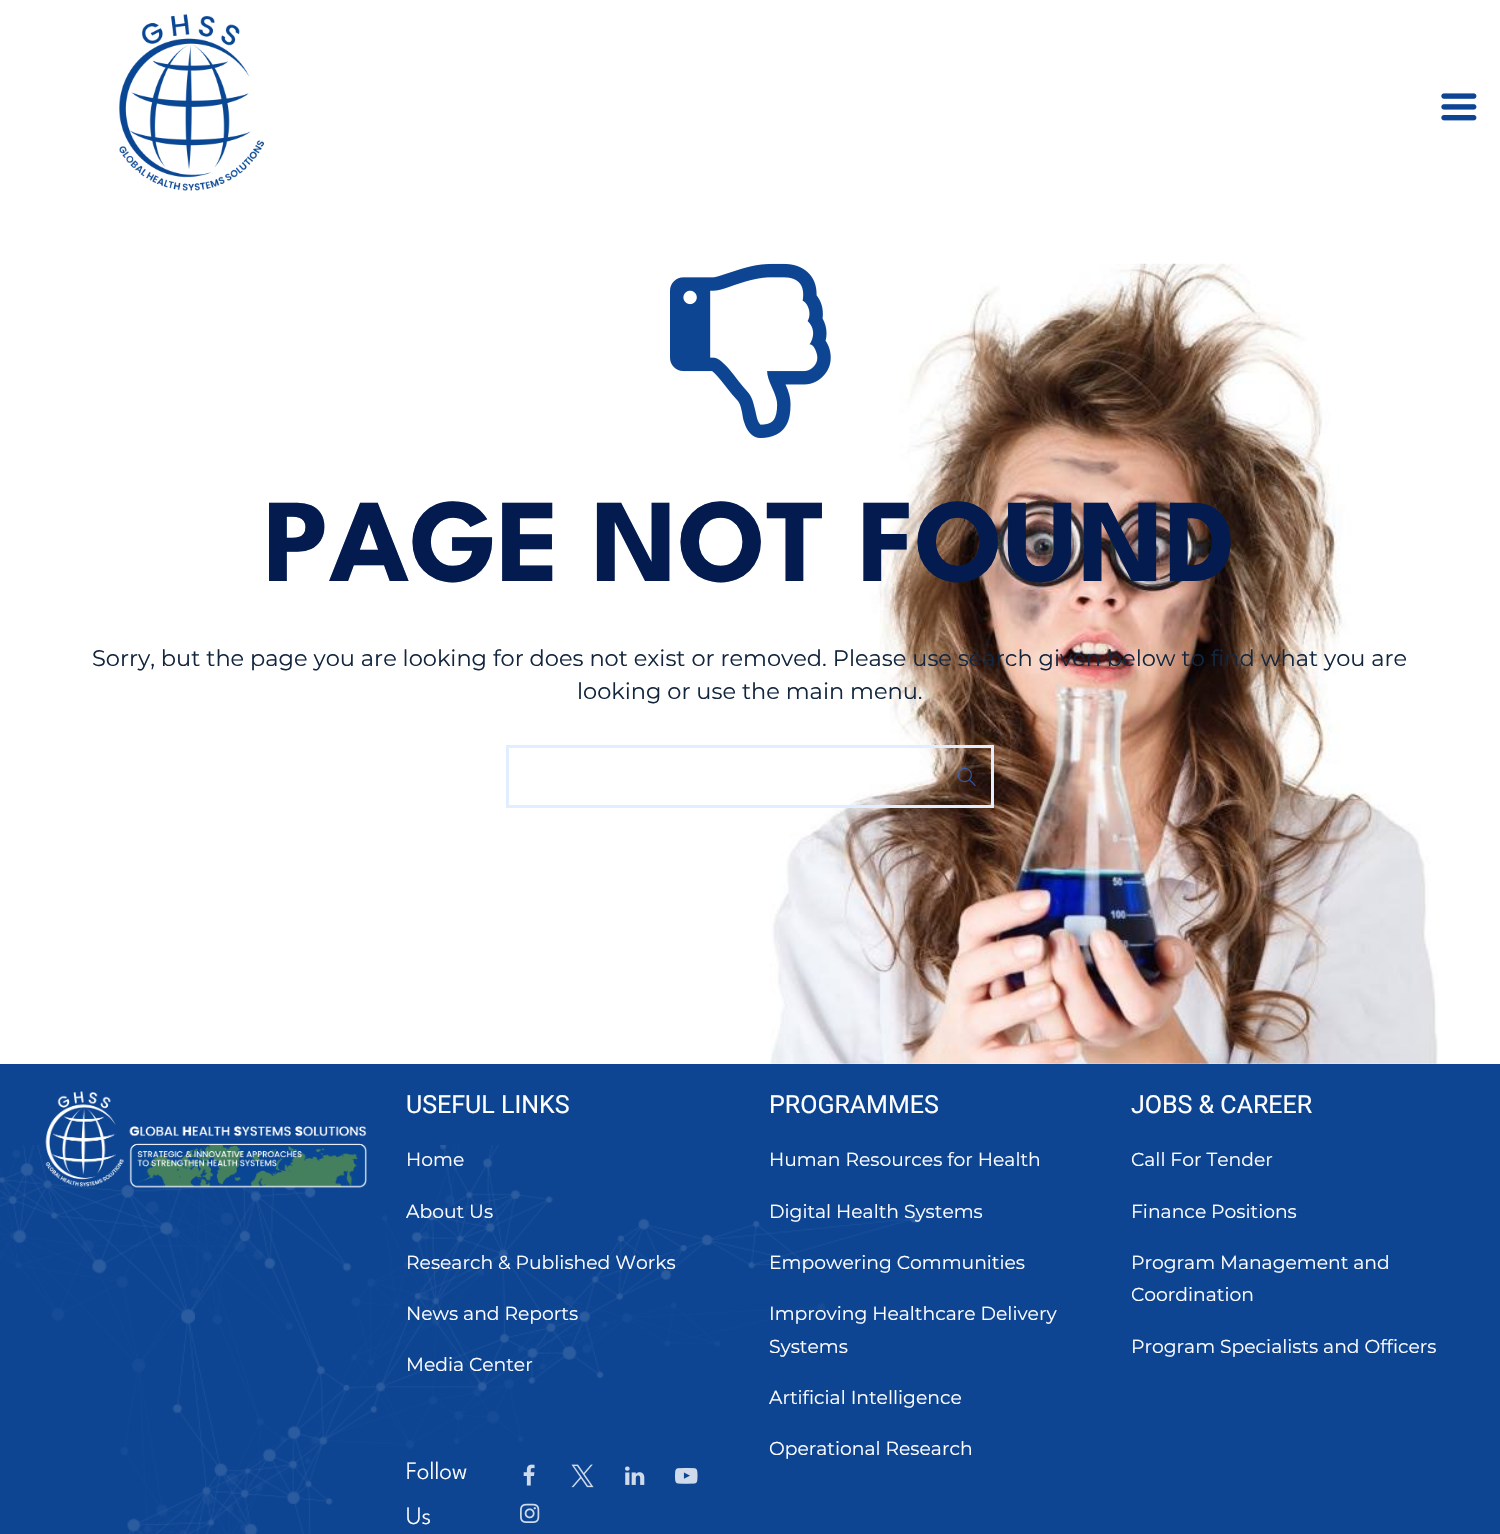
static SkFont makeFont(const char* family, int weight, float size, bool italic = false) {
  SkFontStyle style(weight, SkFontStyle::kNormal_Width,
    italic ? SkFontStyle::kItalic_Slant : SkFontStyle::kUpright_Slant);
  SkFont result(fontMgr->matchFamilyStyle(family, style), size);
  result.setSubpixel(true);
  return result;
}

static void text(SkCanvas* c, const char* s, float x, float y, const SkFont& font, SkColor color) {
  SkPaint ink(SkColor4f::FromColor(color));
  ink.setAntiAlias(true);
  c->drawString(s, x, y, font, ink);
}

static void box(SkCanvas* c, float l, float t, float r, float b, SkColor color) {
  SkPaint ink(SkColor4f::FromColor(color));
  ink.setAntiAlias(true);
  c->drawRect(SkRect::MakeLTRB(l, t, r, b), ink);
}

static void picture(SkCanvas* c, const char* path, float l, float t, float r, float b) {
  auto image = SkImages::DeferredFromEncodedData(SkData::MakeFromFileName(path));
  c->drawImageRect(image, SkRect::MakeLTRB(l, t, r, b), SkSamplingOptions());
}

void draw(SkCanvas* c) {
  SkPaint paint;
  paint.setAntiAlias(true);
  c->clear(0xffffffff);
  picture(c, "img_01.png", 119, 14, 264, 191);
  picture(c, "img_02.png", 1441, 93, 1477, 121);
  picture(c, "img_03.png", 770, 263, 1438, 1064);
  picture(c, "img_04.png", 670, 263, 831, 438);
  SkFont face1 = makeFont("League Spartan", 700, 118.75f);
  text(c, "PAGE NOT FOUND", 264, 581, face1, 0xff031b4e);
  SkFont face2 = makeFont("Montserrat", 400, 22.5f);
  text(c, "Sorry, but the page you are looking for does not exist or removed. Please use search given below to find what you are", 92, 666, face2, 0xff13263e);
  text(c, "looking or use the main menu.", 577, 699, face2, 0xff13263e);
  paint.setStyle(SkPaint::kStroke_Style);
  paint.setStrokeWidth(3);
  paint.setColor(0xffe1eeff);
  c->drawRect(SkRect::MakeLTRB(507.5f, 746.5f, 992.5f, 806.5f), paint);
  picture(c, "img_05.png", 957, 767, 976, 786);
  box(c, 0, 1064, 1500, 1534, 0xff0d4593);
  picture(c, "img_12.png", 0, 1145, 919, 1534);
  picture(c, "img_06.png", 45, 1091, 367, 1188);
  SkFont face3 = makeFont("Roboto", 400, 25);
  text(c, "USEFUL LINKS", 406, 1113, face3, 0xffffffff);
  SkFont face4 = makeFont("Montserrat", 400, 18.75f);
  text(c, "Home", 406, 1166, face4, 0xffffffff);
  text(c, "About Us", 406, 1218, face4, 0xffffffff);
  text(c, "Research & Published Works", 406, 1269, face4, 0xffffffff);
  text(c, "News and Reports", 406, 1320, face4, 0xffffffff);
  text(c, "Media Center", 406, 1371, face4, 0xffffffff);
  SkFont face5 = makeFont("League Spartan", 300, 25);
  text(c, "Follow", 406, 1479, face5, 0xffffffff);
  text(c, "Us", 406, 1524, face5, 0xffffffff);
  picture(c, "img_07.png", 523, 1464, 535, 1486);
  picture(c, "img_08.png", 571, 1464, 594, 1488);
  picture(c, "img_09.png", 625, 1466, 645, 1485);
  picture(c, "img_10.png", 675, 1467, 698, 1484);
  picture(c, "img_11.png", 520, 1503, 540, 1523);
  text(c, "PROGRAMMES", 769, 1113, face3, 0xffffffff);
  text(c, "Human Resources for Health", 769, 1166, face4, 0xffffffff);
  text(c, "Digital Health Systems", 769, 1218, face4, 0xffffffff);
  text(c, "Empowering Communities", 769, 1269, face4, 0xffffffff);
  text(c, "Improving Healthcare Delivery", 769, 1320, face4, 0xffffffff);
  text(c, "Systems", 769, 1353, face4, 0xffffffff);
  text(c, "Artificial Intelligence", 769, 1404, face4, 0xffffffff);
  text(c, "Operational Research", 769, 1455, face4, 0xffffffff);
  text(c, "JOBS & CAREER", 1131, 1113, face3, 0xffffffff);
  text(c, "Call For Tender", 1131, 1166, face4, 0xffffffff);
  text(c, "Finance Positions", 1131, 1218, face4, 0xffffffff);
  text(c, "Program Management and", 1131, 1269, face4, 0xffffffff);
  text(c, "Coordination", 1131, 1301, face4, 0xffffffff);
  text(c, "Program Specialists and Officers", 1131, 1353, face4, 0xffffffff);
}
